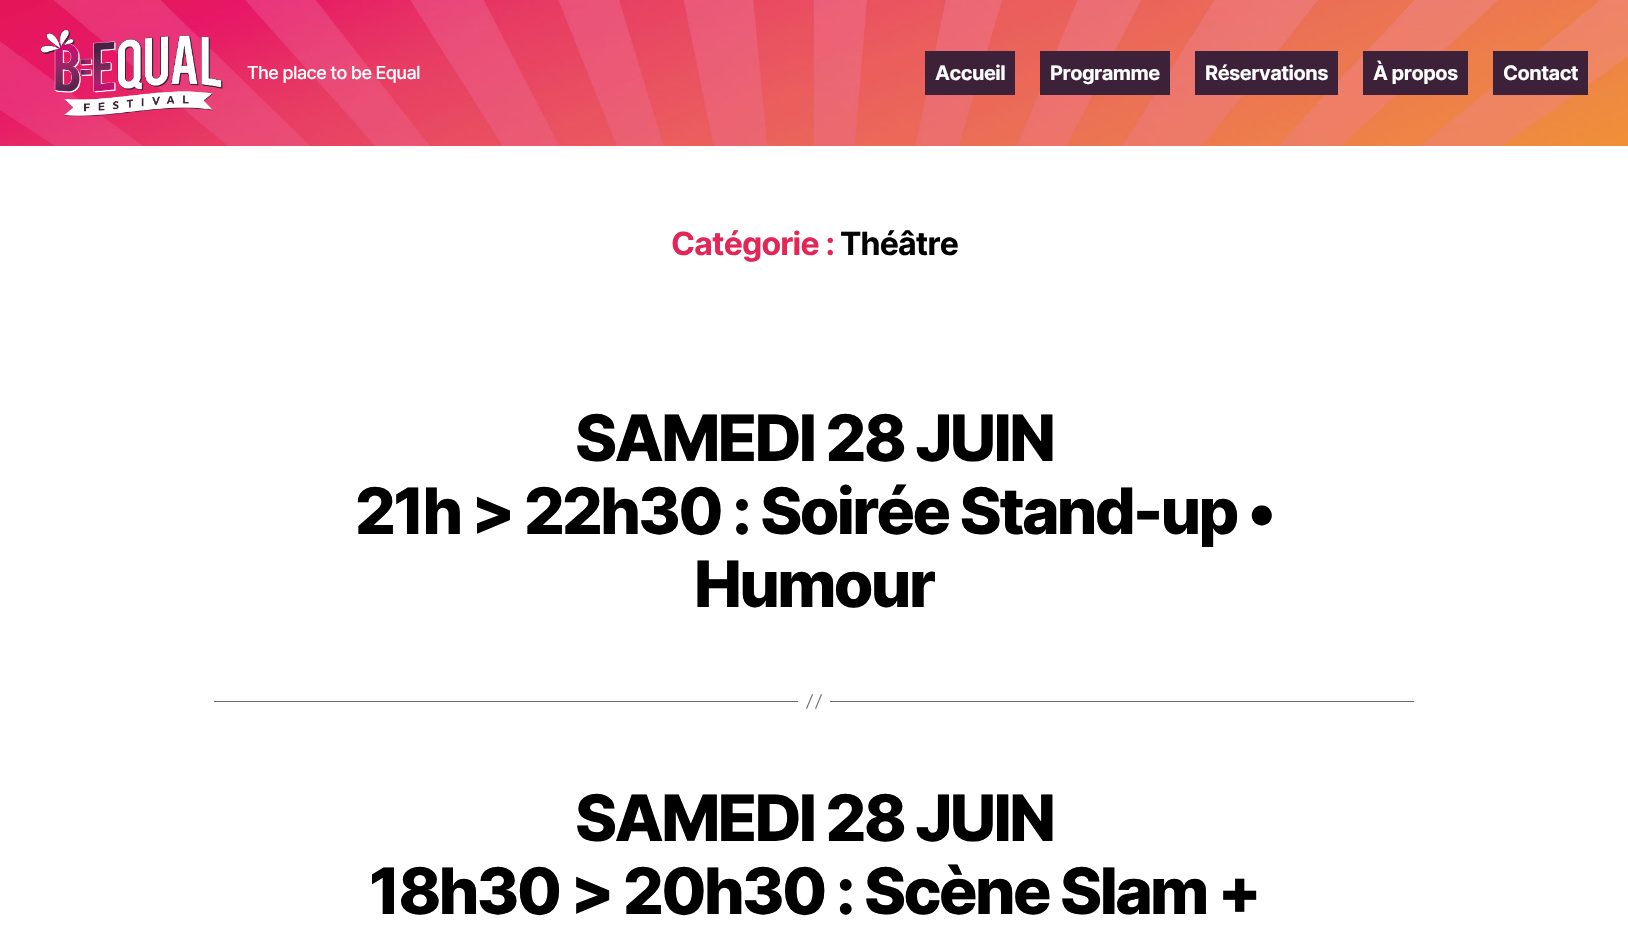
static SkFont makeFont(const char* family, int weight, float size, bool italic = false) {
  SkFontStyle style(weight, SkFontStyle::kNormal_Width,
    italic ? SkFontStyle::kItalic_Slant : SkFontStyle::kUpright_Slant);
  SkFont result(fontMgr->matchFamilyStyle(family, style), size);
  result.setSubpixel(true);
  return result;
}

static void spacedText(SkCanvas* c, const char* s, float x, float y, const SkFont& font, const SkPaint& ink, float letter, float word) {
  std::vector<SkGlyphID> glyphs(font.countText(s, strlen(s), SkTextEncoding::kUTF8));
  std::vector<float> xs(glyphs.size());
  font.textToGlyphs(s, strlen(s), SkTextEncoding::kUTF8, glyphs);
  font.getXPos(glyphs, xs, x);
  float extra = 0;
  for (size_t i = 0; i < glyphs.size(); i++) {
    xs[i] += extra;
    extra += letter + word * (glyphs[i] == font.unicharToGlyph(' '));
  }
  c->drawTextBlob(SkTextBlob::MakeFromPosHGlyphs(glyphs, xs, y, font), 0, 0, ink);
}

static void box(SkCanvas* c, float l, float t, float r, float b, SkColor color) {
  SkPaint ink(SkColor4f::FromColor(color));
  ink.setAntiAlias(true);
  c->drawRect(SkRect::MakeLTRB(l, t, r, b), ink);
}

static void picture(SkCanvas* c, const char* path, float l, float t, float r, float b) {
  auto image = SkImages::DeferredFromEncodedData(SkData::MakeFromFileName(path));
  c->drawImageRect(image, SkRect::MakeLTRB(l, t, r, b), SkSamplingOptions());
}

void draw(SkCanvas* c) {
  SkPaint paint;
  paint.setAntiAlias(true);
  c->clear(0xffffffff);
  picture(c, "img_01.png", 0, 0, 1628, 146);
  picture(c, "img_02.png", 40, 29, 223, 117);
  SkFont face1 = makeFont("Inter", 500, 18);
  paint.setColor(0xffffffff);
  spacedText(c, "The place to be Equal", 247, 79, face1, paint, -0.6f, 0);
  box(c, 925, 51, 1015, 95, 0xff3d2138);
  SkFont face2 = makeFont("Inter", 700, 20);
  spacedText(c, "Accueil", 935, 80, face2, paint, -0.5f, 0);
  box(c, 1040, 51, 1170, 95, 0xff3d2138);
  spacedText(c, "Programme", 1050, 80, face2, paint, -0.5f, 0);
  box(c, 1195, 51, 1338, 95, 0xff3d2138);
  spacedText(c, "Réservations", 1205, 80, face2, paint, -0.5f, 0);
  box(c, 1363, 51, 1468, 95, 0xff3d2138);
  spacedText(c, "À propos", 1373, 80, face2, paint, -0.5f, 0);
  box(c, 1493, 51, 1588, 95, 0xff3d2138);
  spacedText(c, "Contact", 1503, 80, face2, paint, -0.5f, 0);
  SkFont face3 = makeFont("Inter", 700, 32);
  paint.setColor(0xffe22658);
  spacedText(c, "Catégorie :", 671, 255, face3, paint, -0.8f, 0);
  paint.setColor(0xff000000);
  spacedText(c, "Théâtre", 840, 255, face3, paint, -0.8f, 0);
  SkFont face4 = makeFont("Inter", 800, 64);
  spacedText(c, "SAMEDI 28 JUIN", 575, 461, face4, paint, -2.65f, 0);
  spacedText(c, "21h > 22h30 : Soirée Stand-up •", 355, 534, face4, paint, -2.65f, 0);
  spacedText(c, "Humour", 694, 607, face4, paint, -2.65f, 0);
  box(c, 830, 701, 1414, 702, 0xff6d6d6d);
  box(c, 214, 701, 798, 702, 0xff6d6d6d);
  paint.setColor(0xff6d6d6d);
  c->drawPath(SkPathBuilder().moveTo(812, 694).lineTo(813, 694.5f).lineTo(807, 709).lineTo(806, 708.5f).close().moveTo(821, 694).lineTo(822, 694.5f).lineTo(816, 709).lineTo(815, 708.5f).close().detach(), paint);
  paint.setColor(0xff000000);
  spacedText(c, "SAMEDI 28 JUIN", 575, 841, face4, paint, -2.65f, 0);
  spacedText(c, "18h30 > 20h30 : Scène Slam +", 369, 914, face4, paint, -2.65f, 0);
}
